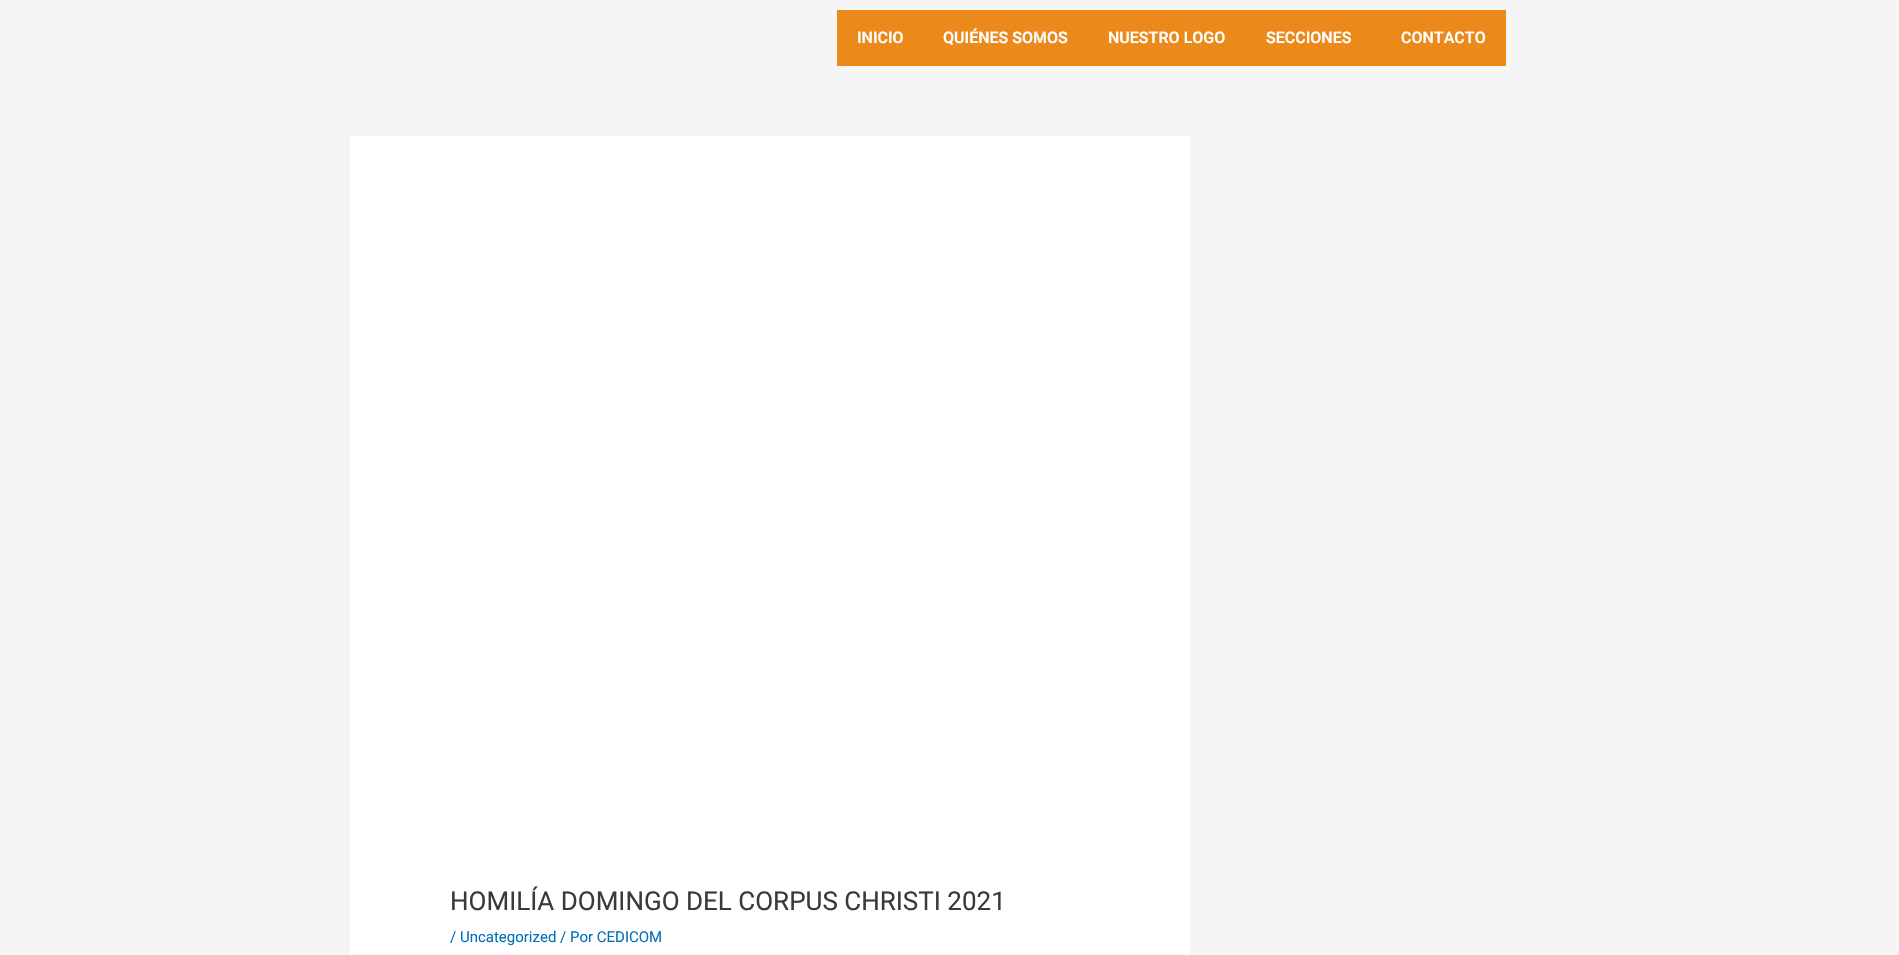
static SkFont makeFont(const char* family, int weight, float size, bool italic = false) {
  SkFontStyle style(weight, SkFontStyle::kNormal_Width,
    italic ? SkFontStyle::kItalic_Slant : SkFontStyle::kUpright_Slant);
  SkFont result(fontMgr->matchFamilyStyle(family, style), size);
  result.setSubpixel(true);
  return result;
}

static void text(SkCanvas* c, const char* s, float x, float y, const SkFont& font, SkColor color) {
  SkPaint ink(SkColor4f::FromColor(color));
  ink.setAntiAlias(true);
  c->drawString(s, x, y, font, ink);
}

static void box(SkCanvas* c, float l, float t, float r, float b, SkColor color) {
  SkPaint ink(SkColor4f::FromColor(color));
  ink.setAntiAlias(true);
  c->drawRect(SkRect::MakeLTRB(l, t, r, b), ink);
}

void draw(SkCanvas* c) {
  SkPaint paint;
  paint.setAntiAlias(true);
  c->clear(0xfff5f5f5);
  box(c, 837, 10, 1506, 66, 0xffeb891b);
  SkFont face1 = makeFont("Roboto", 600, 16);
  text(c, "INICIO", 857, 43, face1, 0xffffffff);
  text(c, "QUIÉNES SOMOS", 943, 43, face1, 0xffffffff);
  text(c, "NUESTRO LOGO", 1108, 43, face1, 0xffffffff);
  text(c, "SECCIONES", 1266, 43, face1, 0xffffffff);
  text(c, "CONTACTO", 1401, 43, face1, 0xffffffff);
  box(c, 350, 136, 1190, 955, 0xffffffff);
  SkFont face2 = makeFont("Roboto", 400, 26);
  text(c, "HOMILÍA DOMINGO DEL CORPUS CHRISTI 2021", 450, 910, face2, 0xff3a3a3a);
  SkFont face3 = makeFont("Roboto", 400, 15);
  text(c, "/ Uncategorized / Por CEDICOM", 450, 942, face3, 0xff0170b9);
}
